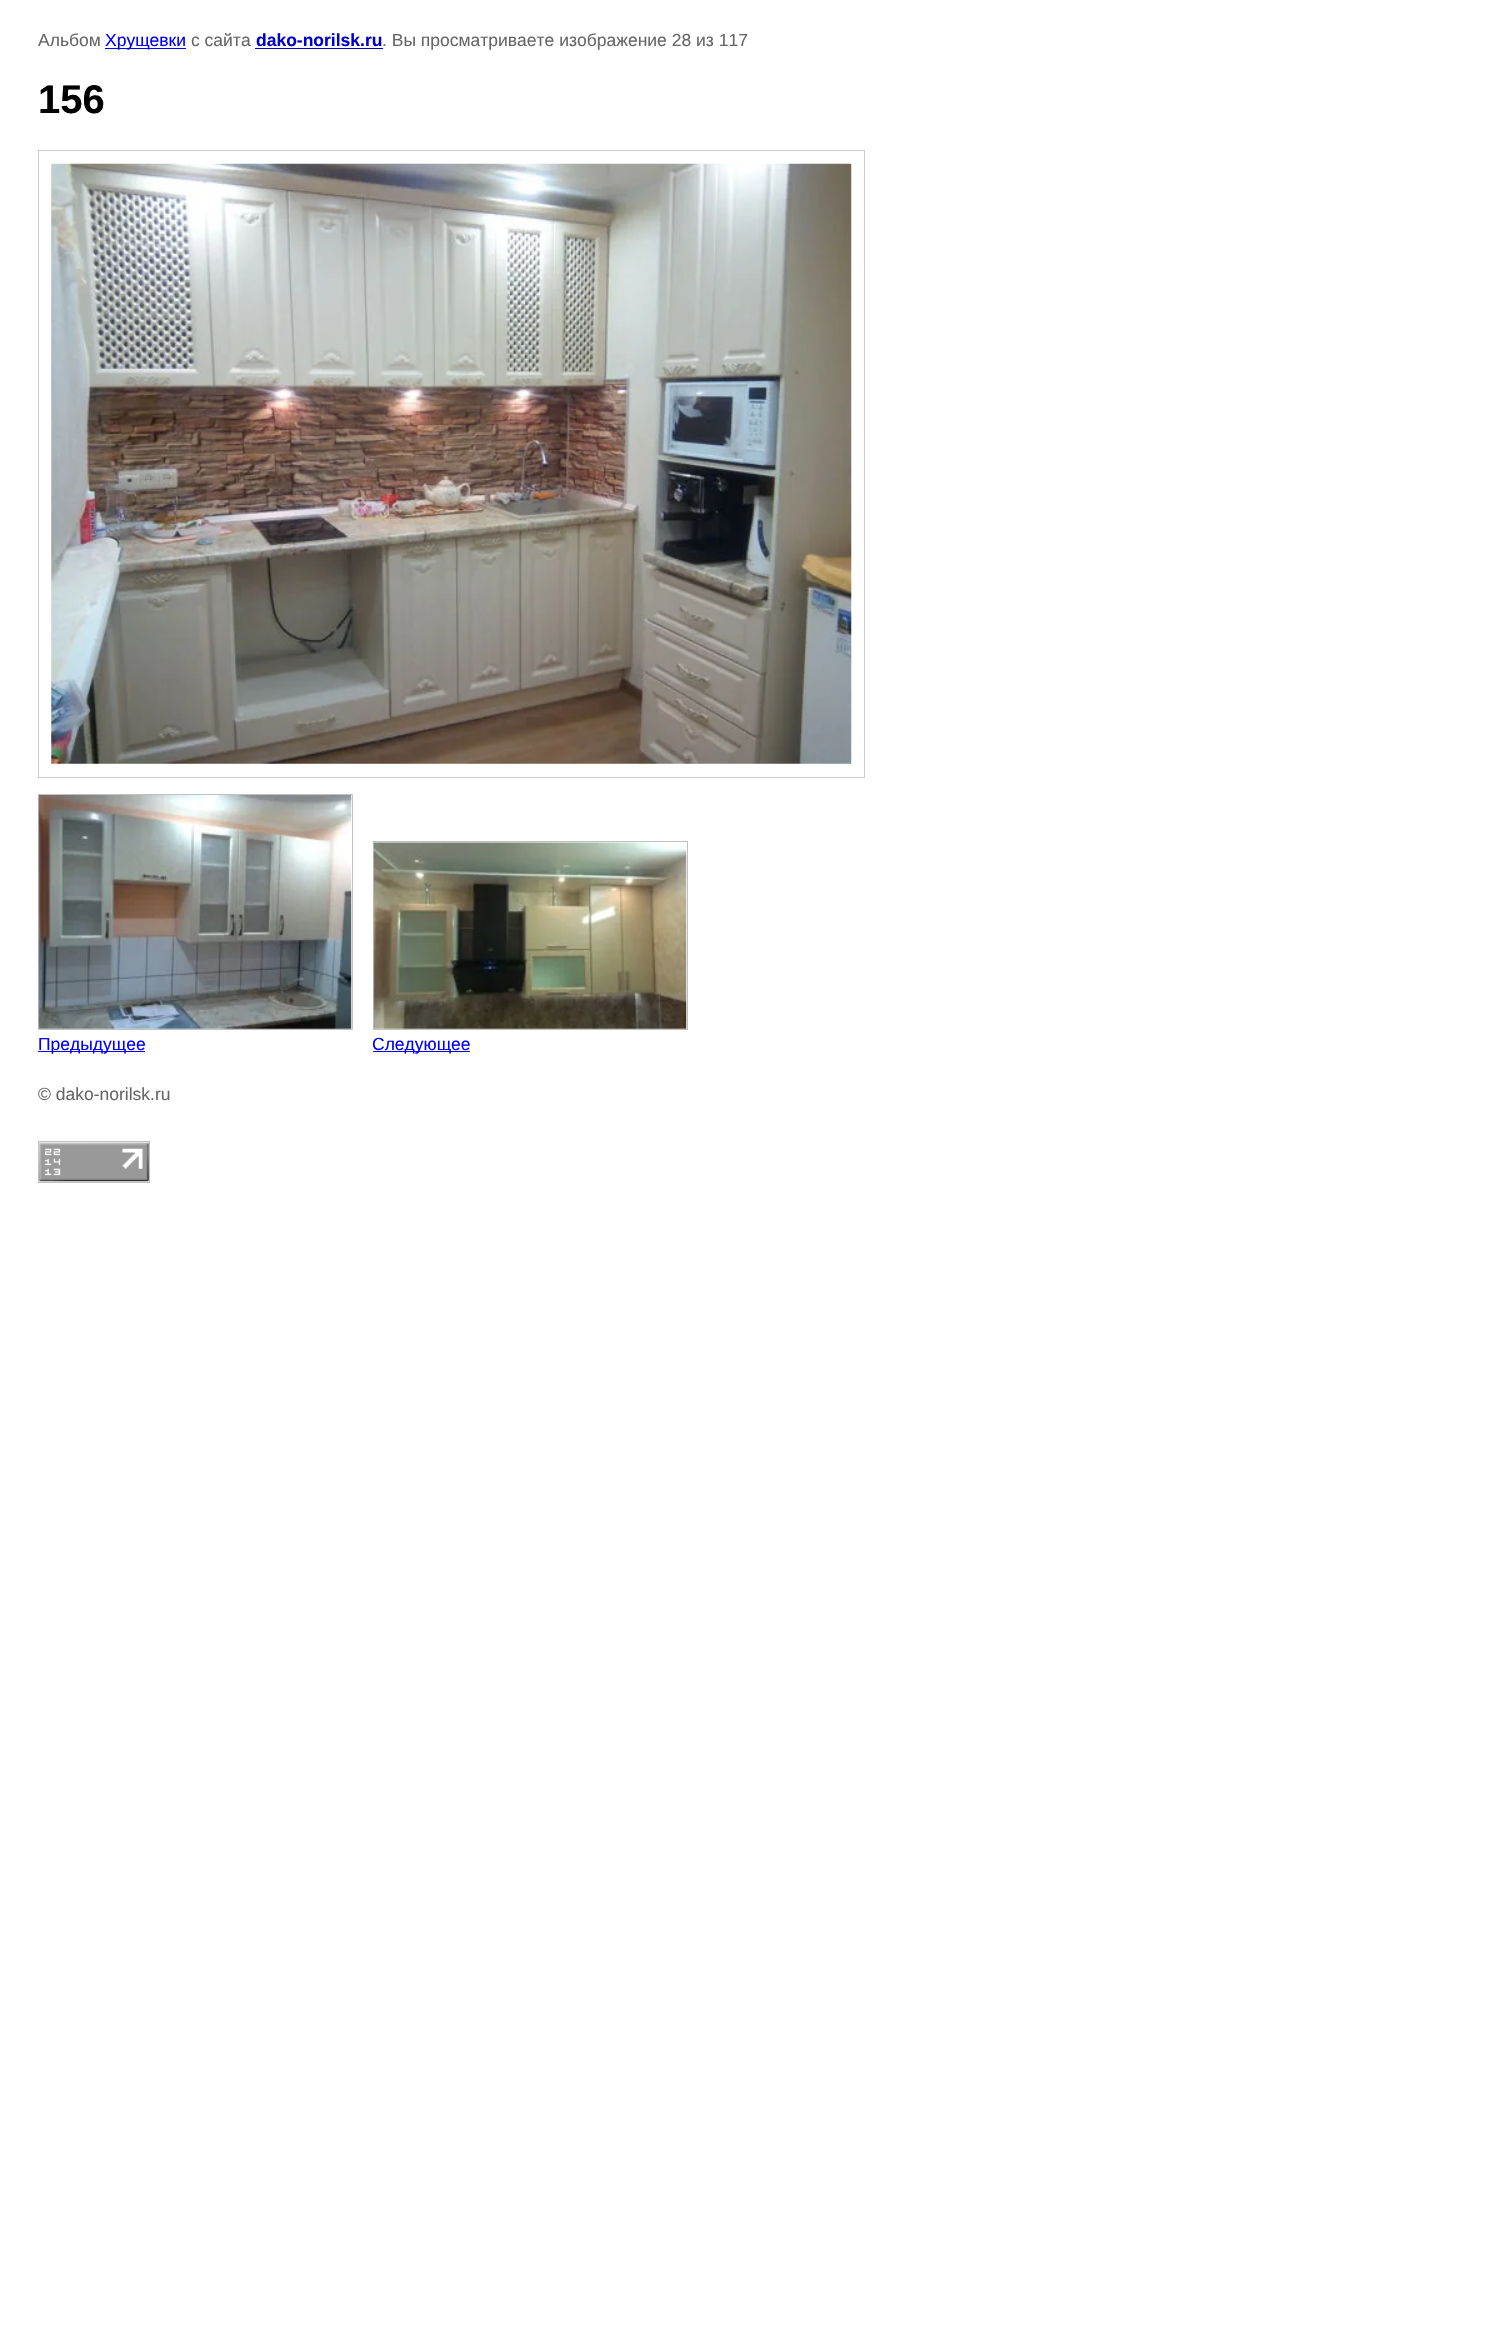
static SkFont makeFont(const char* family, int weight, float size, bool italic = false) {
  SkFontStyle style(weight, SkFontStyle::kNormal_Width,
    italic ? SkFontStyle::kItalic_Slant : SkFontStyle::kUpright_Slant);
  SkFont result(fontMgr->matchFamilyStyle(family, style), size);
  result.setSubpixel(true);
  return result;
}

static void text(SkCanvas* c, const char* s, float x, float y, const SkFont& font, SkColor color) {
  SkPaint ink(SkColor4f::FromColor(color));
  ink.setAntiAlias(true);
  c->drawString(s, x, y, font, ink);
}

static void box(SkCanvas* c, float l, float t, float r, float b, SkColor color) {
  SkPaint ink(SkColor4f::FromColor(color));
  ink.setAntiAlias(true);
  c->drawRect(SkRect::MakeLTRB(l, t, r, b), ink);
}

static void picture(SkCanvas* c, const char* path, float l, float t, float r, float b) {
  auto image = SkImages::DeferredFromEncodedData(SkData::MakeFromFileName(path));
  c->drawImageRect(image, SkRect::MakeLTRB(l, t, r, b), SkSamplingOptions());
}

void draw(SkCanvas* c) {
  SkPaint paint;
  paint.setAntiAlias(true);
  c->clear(0xffffffff);
  SkFont face1 = makeFont("Liberation Sans", 400, 17.5f);
  text(c, "Альбом", 38, 46, face1, 0xff666666);
  box(c, 105, 48, 186, 49, 0xff0000ff);
  text(c, "Хрущевки", 105, 46, face1, 0xff0000ff);
  text(c, "с сайта", 191, 46, face1, 0xff666666);
  SkFont face2 = makeFont("Liberation Sans", 700, 17.5f);
  text(c, "dako-norilsk.ru", 256, 46, face2, 0xff0000cc);
  box(c, 255, 48, 383, 49, 0xff0000cc);
  text(c, ". Вы просматриваете изображение 28 из 117", 382, 46, face1, 0xff666666);
  SkFont face3 = makeFont("Liberation Sans", 700, 40);
  text(c, "156", 38, 113, face3, 0xff000000);
  paint.setStyle(SkPaint::kStroke_Style);
  paint.setStrokeWidth(1);
  paint.setColor(0xffcccccc);
  c->drawRect(SkRect::MakeLTRB(38.5f, 150.5f, 864.5f, 777.5f), paint);
  picture(c, "img_01.png", 51, 163, 852, 764);
  paint.setColor(0xffc0c0c0);
  c->drawRect(SkRect::MakeLTRB(38.5f, 794.5f, 352.5f, 1029.5f), paint);
  picture(c, "img_02.png", 38, 795, 352, 1029);
  box(c, 38, 1051, 145, 1052, 0xff0000ff);
  text(c, "Предыдущее", 38, 1050, face1, 0xff0000ff);
  c->drawRect(SkRect::MakeLTRB(373.5f, 841.5f, 687.5f, 1029.5f), paint);
  picture(c, "img_03.png", 373, 842, 687, 1029);
  box(c, 373, 1051, 470, 1052, 0xff0000ff);
  text(c, "Следующее", 372, 1050, face1, 0xff0000ff);
  text(c, "© dako-norilsk.ru", 38, 1100, face1, 0xff666666);
  c->drawRect(SkRect::MakeLTRB(38.5f, 1141.5f, 149.5f, 1182.5f), paint);
  picture(c, "img_04.png", 38, 1142, 149, 1182);
}
